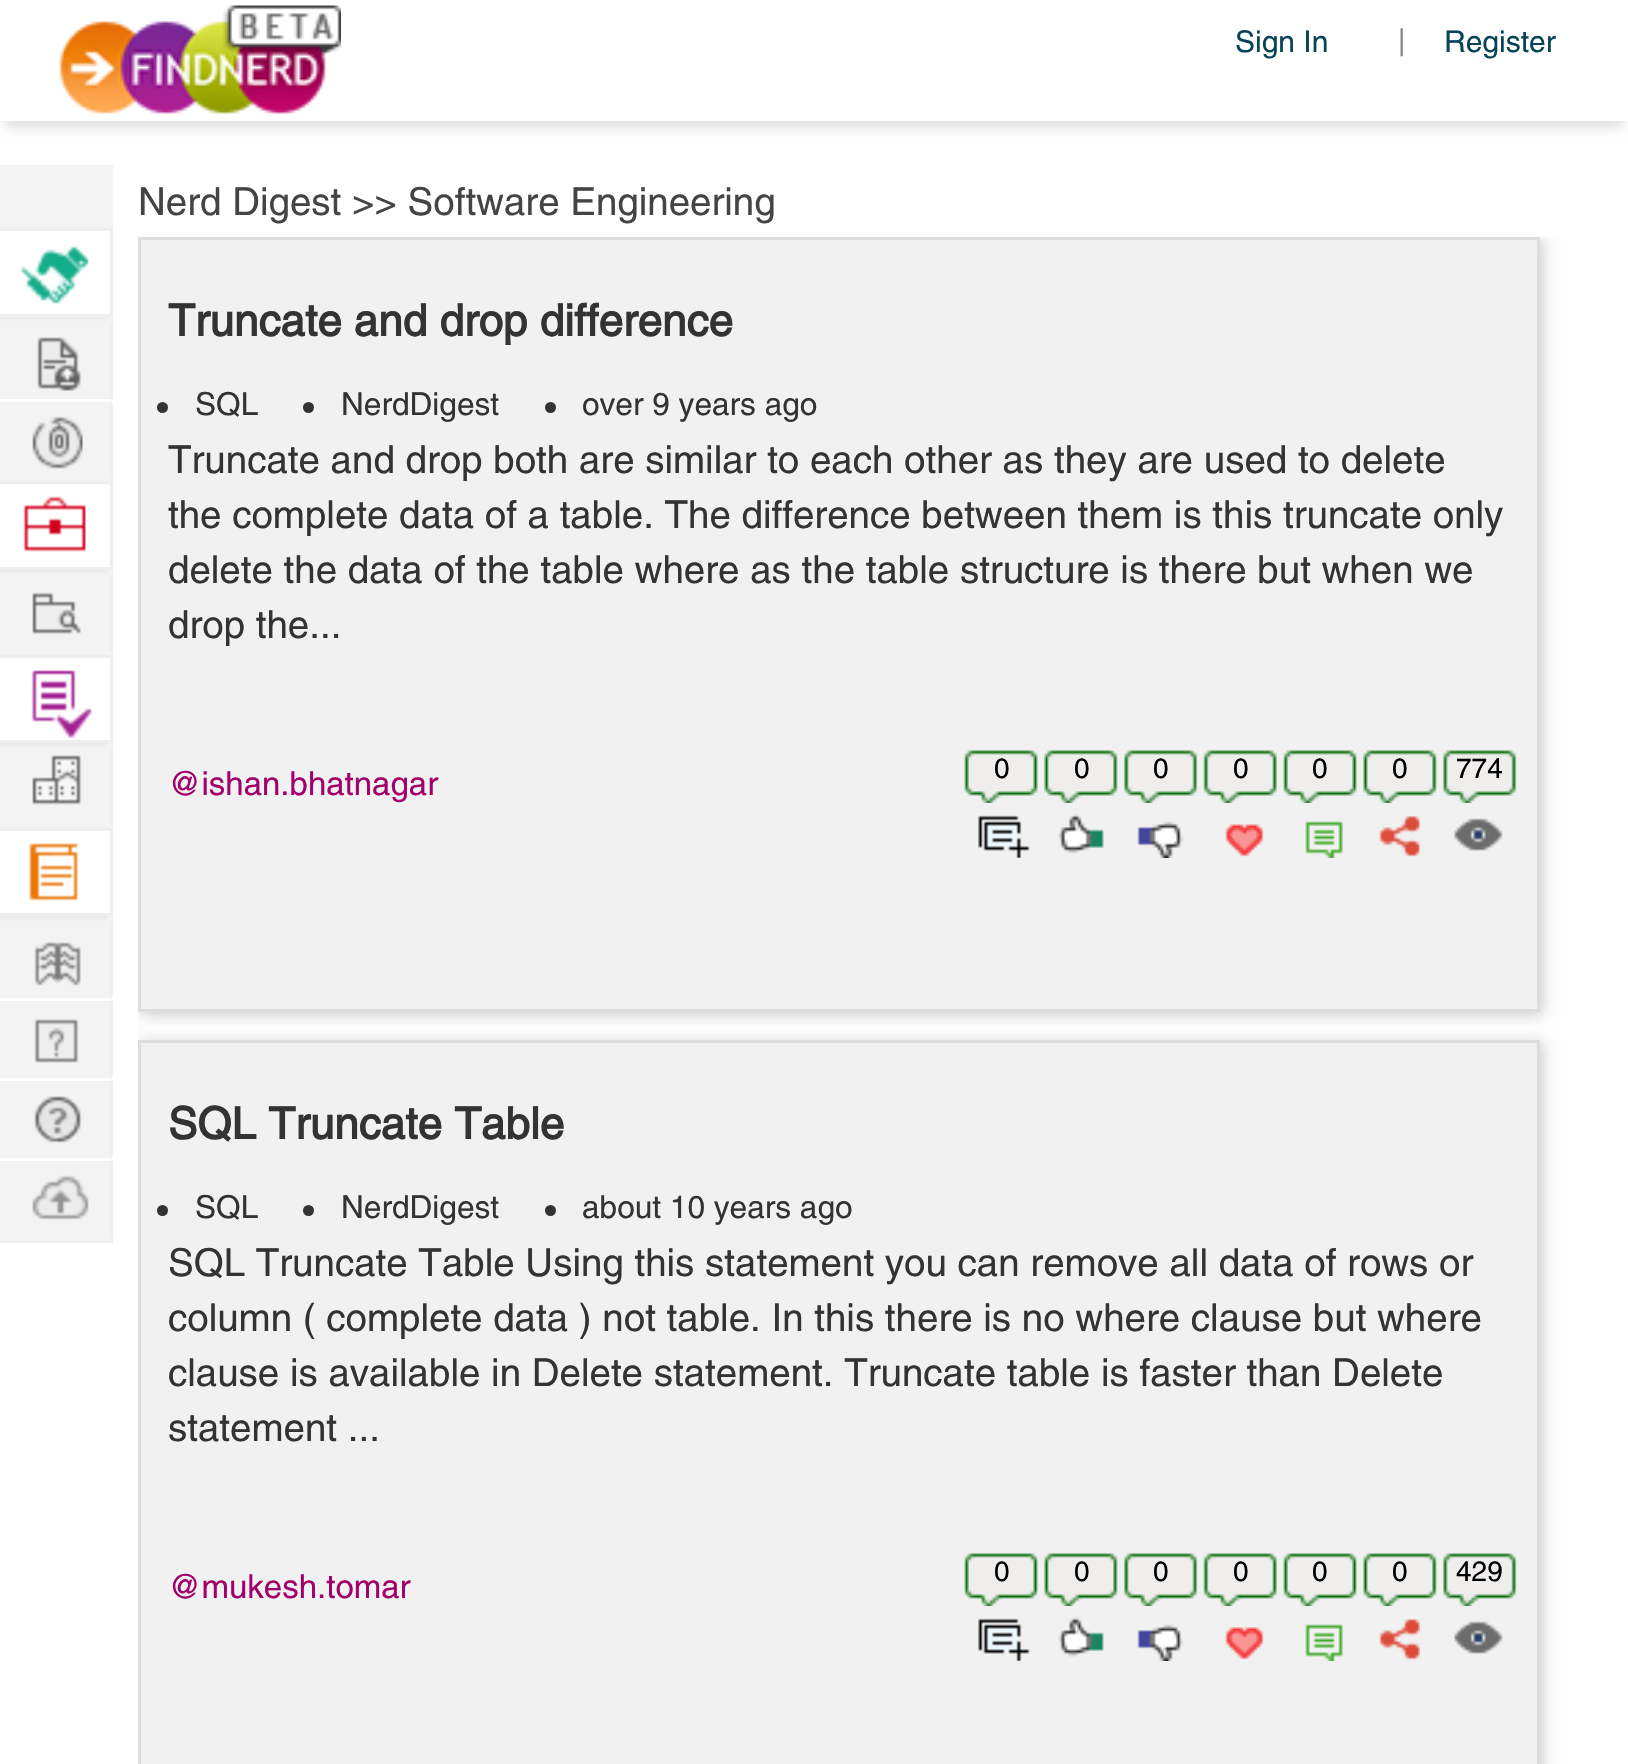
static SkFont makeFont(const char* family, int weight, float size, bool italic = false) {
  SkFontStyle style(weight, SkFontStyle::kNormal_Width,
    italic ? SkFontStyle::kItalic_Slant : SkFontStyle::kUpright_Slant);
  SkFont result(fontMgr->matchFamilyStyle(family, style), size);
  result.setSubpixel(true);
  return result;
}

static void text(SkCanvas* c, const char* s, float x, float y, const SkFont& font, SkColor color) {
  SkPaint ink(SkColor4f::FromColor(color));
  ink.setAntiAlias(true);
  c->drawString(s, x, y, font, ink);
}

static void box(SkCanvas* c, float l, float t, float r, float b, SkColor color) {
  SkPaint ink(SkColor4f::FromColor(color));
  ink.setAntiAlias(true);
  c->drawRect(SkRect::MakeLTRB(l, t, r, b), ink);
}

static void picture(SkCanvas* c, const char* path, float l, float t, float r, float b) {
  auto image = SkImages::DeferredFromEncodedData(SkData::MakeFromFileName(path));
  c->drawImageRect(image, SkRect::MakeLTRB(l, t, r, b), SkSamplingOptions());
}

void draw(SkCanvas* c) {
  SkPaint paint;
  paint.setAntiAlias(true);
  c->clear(0xffffffff);
  c->save();
  c->clipRect(SkRect::MakeLTRB(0, 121, 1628, 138));
  paint.setColor(0xffdddddd);
  paint.setMaskFilter(SkMaskFilter::MakeBlur(kNormal_SkBlurStyle, 5.5f));
  c->drawRect(SkRect::MakeLTRB(6, 17, 1623, 127), paint);
  paint.setMaskFilter(nullptr);
  c->restore();
  picture(c, "img_01.png", 59, 5, 341, 114);
  SkFont face1 = makeFont("Helvetica", 400, 30);
  text(c, "Sign In", 1235, 52, face1, 0xff074456);
  SkFont face2 = makeFont("Helvetica", 400, 28);
  text(c, "|", 1398, 50, face2, 0xff828282);
  text(c, "Register", 1444, 52, face1, 0xff074456);
  box(c, 0, 165, 113, 1238, 0xfff3f3f3);
  box(c, 0, 1241, 113, 1243, 0xffeeeeee);
  paint.setColor(0x80dddddd);
  paint.setMaskFilter(SkMaskFilter::MakeBlur(kNormal_SkBlurStyle, 1.5f));
  c->drawRect(SkRect::MakeLTRB(-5, 231, 107, 319), paint);
  paint.setMaskFilter(nullptr);
  box(c, 0, 231, 110, 314, 0xffffffff);
  box(c, 0, 228, 113, 231, 0xffeeeeee);
  box(c, 110, 228, 113, 316, 0xffeeeeee);
  box(c, 0, 314, 113, 317, 0xffeeeeee);
  picture(c, "img_02.png", 20, 246, 89, 304);
  box(c, 110, 322, 113, 481, 0xffeeeeee);
  box(c, 0, 399, 113, 402, 0xffffffff);
  picture(c, "img_03.png", 37, 337, 82, 391);
  box(c, 110, 479, 113, 481, 0xfff3f3f3);
  picture(c, "img_04.png", 32, 416, 83, 469);
  paint.setMaskFilter(SkMaskFilter::MakeBlur(kNormal_SkBlurStyle, 1.5f));
  c->drawRect(SkRect::MakeLTRB(-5, 484, 107, 572), paint);
  paint.setMaskFilter(nullptr);
  box(c, 0, 484, 110, 567, 0xffffffff);
  box(c, 0, 481, 113, 484, 0xffeeeeee);
  box(c, 110, 481, 113, 569, 0xffeeeeee);
  box(c, 0, 567, 113, 570, 0xffeeeeee);
  picture(c, "img_05.png", 23, 496, 86, 552);
  box(c, 110, 575, 113, 655, 0xffeeeeee);
  box(c, 110, 652, 113, 655, 0xfff3f3f3);
  picture(c, "img_06.png", 32, 592, 82, 634);
  paint.setMaskFilter(SkMaskFilter::MakeBlur(kNormal_SkBlurStyle, 1.5f));
  c->drawRect(SkRect::MakeLTRB(-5, 657, 107, 745), paint);
  paint.setMaskFilter(nullptr);
  box(c, 0, 658, 110, 740, 0xffffffff);
  box(c, 0, 655, 113, 658, 0xffeeeeee);
  box(c, 110, 655, 113, 743, 0xffeeeeee);
  box(c, 0, 740, 113, 743, 0xffeeeeee);
  picture(c, "img_07.png", 31, 670, 93, 739);
  box(c, 110, 748, 113, 828, 0xffeeeeee);
  box(c, 110, 825, 113, 828, 0xfff3f3f3);
  picture(c, "img_08.png", 32, 755, 82, 805);
  paint.setMaskFilter(SkMaskFilter::MakeBlur(kNormal_SkBlurStyle, 1.5f));
  c->drawRect(SkRect::MakeLTRB(-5, 831, 107, 919), paint);
  paint.setMaskFilter(nullptr);
  box(c, 0, 831, 110, 913, 0xffffffff);
  box(c, 0, 828, 113, 831, 0xffeeeeee);
  box(c, 110, 828, 113, 916, 0xffeeeeee);
  box(c, 0, 913, 113, 916, 0xffeeeeee);
  picture(c, "img_09.png", 28, 842, 79, 901);
  box(c, 110, 921, 113, 1240, 0xffeeeeee);
  box(c, 0, 998, 113, 1001, 0xffffffff);
  picture(c, "img_10.png", 34, 942, 81, 986);
  box(c, 0, 1078, 113, 1081, 0xffffffff);
  picture(c, "img_11.png", 34, 1019, 79, 1063);
  box(c, 0, 1158, 113, 1161, 0xffffffff);
  picture(c, "img_12.png", 34, 1096, 82, 1143);
  box(c, 0, 1238, 113, 1241, 0xfff3f3f3);
  picture(c, "img_13.png", 32, 1175, 89, 1220);
  SkFont face3 = makeFont("Helvetica", 400, 38.5f);
  text(c, "Nerd Digest >> Software Engineering", 138, 215, face3, 0xff444444);
  c->save();
  c->clipRect(SkRect::MakeLTRB(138, 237, 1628, 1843));
  paint.setColor(0xffcccccc);
  paint.setMaskFilter(SkMaskFilter::MakeBlur(kNormal_SkBlurStyle, 7));
  c->drawRect(SkRect::MakeLTRB(140, 239, 1543, 1015), paint);
  paint.setMaskFilter(nullptr);
  c->restore();
  paint.setColor(0xfff1f1f1);
  c->drawRect(SkRect::MakeLTRB(139.5f, 238.5f, 1538.5f, 1010.5f), paint);
  paint.setStyle(SkPaint::kStroke_Style);
  paint.setStrokeWidth(3);
  paint.setColor(0xffdddddd);
  c->drawRect(SkRect::MakeLTRB(139.5f, 238.5f, 1538.5f, 1010.5f), paint);
  SkFont face4 = makeFont("Helvetica", 700, 44);
  text(c, "Truncate and drop difference", 168, 336, face4, 0xff333333);
  paint.setStyle(SkPaint::kFill_Style);
  paint.setColor(0xff333333);
  c->drawCircle(162.5f, 407.5f, 5.5f, paint);
  SkFont face5 = makeFont("Helvetica", 400, 31.6f);
  text(c, "SQL", 195, 415, face5, 0xff333333);
  c->drawCircle(308.5f, 407.5f, 5.5f, paint);
  text(c, "NerdDigest", 341, 415, face5, 0xff333333);
  c->drawCircle(550.5f, 407.5f, 5.5f, paint);
  text(c, "over 9 years ago", 582, 415, face5, 0xff333333);
  text(c, "Truncate and drop both are similar to each other as they are used to delete", 168, 473, face3, 0xff333333);
  text(c, "the complete data of a table. The difference between them is this truncate only", 168, 528, face3, 0xff333333);
  text(c, "delete the data of the table where as the table structure is there but when we", 168, 583, face3, 0xff333333);
  text(c, "drop the...", 168, 638, face3, 0xff333333);
  SkFont face6 = makeFont("Helvetica", 400, 33);
  text(c, "@ishan.bhatnagar", 168, 795, face6, 0xffa1006b);
  picture(c, "img_14.png", 964, 750, 1038, 803);
  text(c, "0", 994, 778, face2, 0xff000000);
  picture(c, "img_15.png", 978, 815, 1030, 858);
  picture(c, "img_16.png", 1044, 750, 1118, 803);
  text(c, "0", 1074, 778, face2, 0xff000000);
  picture(c, "img_17.png", 1058, 813, 1104, 854);
  picture(c, "img_18.png", 1124, 750, 1198, 803);
  text(c, "0", 1153, 778, face2, 0xff000000);
  picture(c, "img_19.png", 1137, 821, 1184, 858);
  picture(c, "img_20.png", 1203, 750, 1277, 803);
  text(c, "0", 1233, 778, face2, 0xff000000);
  picture(c, "img_21.png", 1225, 824, 1264, 857);
  picture(c, "img_22.png", 1283, 750, 1357, 803);
  text(c, "0", 1312, 778, face2, 0xff000000);
  picture(c, "img_23.png", 1305, 821, 1343, 858);
  picture(c, "img_24.png", 1363, 750, 1437, 803);
  text(c, "0", 1392, 778, face2, 0xff000000);
  picture(c, "img_25.png", 1379, 816, 1420, 857);
  picture(c, "img_26.png", 1443, 750, 1517, 803);
  text(c, "774", 1456, 778, face2, 0xff000000);
  picture(c, "img_27.png", 1454, 818, 1503, 851);
  c->save();
  c->clipRect(SkRect::MakeLTRB(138, 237, 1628, 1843));
  paint.setColor(0xffcccccc);
  paint.setMaskFilter(SkMaskFilter::MakeBlur(kNormal_SkBlurStyle, 7));
  c->drawRect(SkRect::MakeLTRB(140, 1042, 1543, 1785), paint);
  paint.setMaskFilter(nullptr);
  c->restore();
  paint.setColor(0xfff1f1f1);
  c->drawRect(SkRect::MakeLTRB(139.5f, 1041.5f, 1538.5f, 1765.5f), paint);
  paint.setStyle(SkPaint::kStroke_Style);
  paint.setColor(0xffdddddd);
  c->drawRect(SkRect::MakeLTRB(139.5f, 1041.5f, 1538.5f, 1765.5f), paint);
  text(c, "SQL Truncate Table", 168, 1139, face4, 0xff333333);
  paint.setStyle(SkPaint::kFill_Style);
  paint.setColor(0xff333333);
  c->drawCircle(162.5f, 1210.5f, 5.5f, paint);
  text(c, "SQL", 195, 1218, face5, 0xff333333);
  c->drawCircle(308.5f, 1210.5f, 5.5f, paint);
  text(c, "NerdDigest", 341, 1218, face5, 0xff333333);
  c->drawCircle(550.5f, 1210.5f, 5.5f, paint);
  text(c, "about 10 years ago", 582, 1218, face5, 0xff333333);
  text(c, "SQL Truncate Table Using this statement you can remove all data of rows or", 168, 1276, face3, 0xff333333);
  text(c, "column ( complete data ) not table. In this there is no where clause but where", 168, 1331, face3, 0xff333333);
  text(c, "clause is available in Delete statement. Truncate table is faster than Delete", 168, 1386, face3, 0xff333333);
  text(c, "statement ...", 168, 1441, face3, 0xff333333);
  text(c, "@mukesh.tomar", 168, 1598, face6, 0xffa1006b);
  picture(c, "img_14.png", 964, 1553, 1038, 1606);
  text(c, "0", 994, 1581, face2, 0xff000000);
  picture(c, "img_28.png", 978, 1618, 1030, 1661);
  picture(c, "img_16.png", 1044, 1553, 1118, 1606);
  text(c, "0", 1074, 1581, face2, 0xff000000);
  picture(c, "img_17.png", 1058, 1616, 1104, 1657);
  picture(c, "img_18.png", 1124, 1553, 1198, 1606);
  text(c, "0", 1153, 1581, face2, 0xff000000);
  picture(c, "img_19.png", 1137, 1624, 1184, 1661);
  picture(c, "img_20.png", 1203, 1553, 1277, 1606);
  text(c, "0", 1233, 1581, face2, 0xff000000);
  picture(c, "img_21.png", 1225, 1627, 1264, 1660);
  picture(c, "img_22.png", 1283, 1553, 1357, 1606);
  text(c, "0", 1312, 1581, face2, 0xff000000);
  picture(c, "img_23.png", 1305, 1624, 1343, 1661);
  picture(c, "img_24.png", 1363, 1553, 1437, 1606);
  text(c, "0", 1392, 1581, face2, 0xff000000);
  picture(c, "img_25.png", 1379, 1619, 1420, 1660);
  picture(c, "img_26.png", 1443, 1553, 1517, 1606);
  text(c, "429", 1456, 1581, face2, 0xff000000);
  picture(c, "img_27.png", 1454, 1621, 1503, 1654);
}
